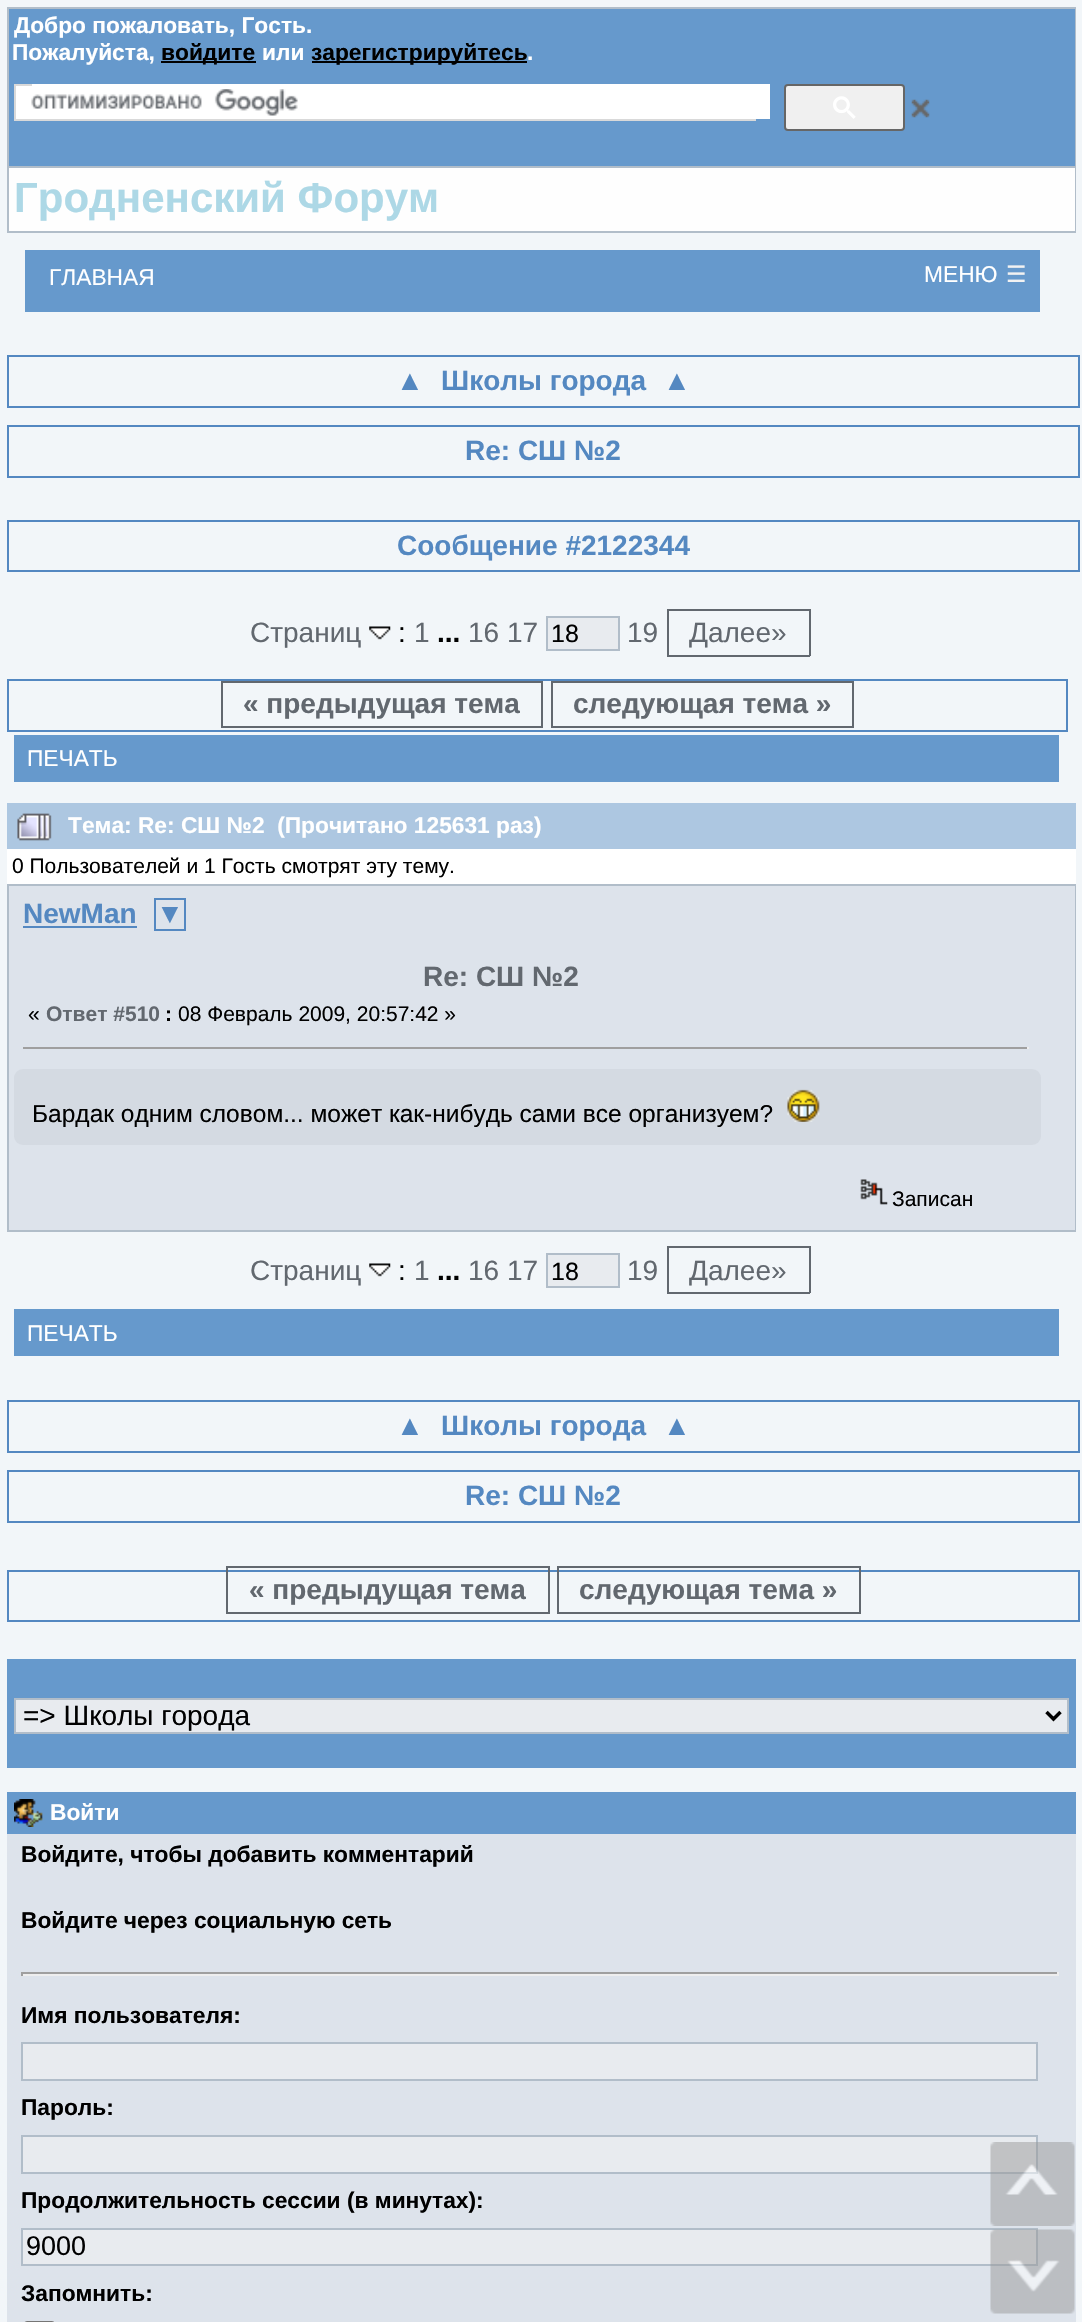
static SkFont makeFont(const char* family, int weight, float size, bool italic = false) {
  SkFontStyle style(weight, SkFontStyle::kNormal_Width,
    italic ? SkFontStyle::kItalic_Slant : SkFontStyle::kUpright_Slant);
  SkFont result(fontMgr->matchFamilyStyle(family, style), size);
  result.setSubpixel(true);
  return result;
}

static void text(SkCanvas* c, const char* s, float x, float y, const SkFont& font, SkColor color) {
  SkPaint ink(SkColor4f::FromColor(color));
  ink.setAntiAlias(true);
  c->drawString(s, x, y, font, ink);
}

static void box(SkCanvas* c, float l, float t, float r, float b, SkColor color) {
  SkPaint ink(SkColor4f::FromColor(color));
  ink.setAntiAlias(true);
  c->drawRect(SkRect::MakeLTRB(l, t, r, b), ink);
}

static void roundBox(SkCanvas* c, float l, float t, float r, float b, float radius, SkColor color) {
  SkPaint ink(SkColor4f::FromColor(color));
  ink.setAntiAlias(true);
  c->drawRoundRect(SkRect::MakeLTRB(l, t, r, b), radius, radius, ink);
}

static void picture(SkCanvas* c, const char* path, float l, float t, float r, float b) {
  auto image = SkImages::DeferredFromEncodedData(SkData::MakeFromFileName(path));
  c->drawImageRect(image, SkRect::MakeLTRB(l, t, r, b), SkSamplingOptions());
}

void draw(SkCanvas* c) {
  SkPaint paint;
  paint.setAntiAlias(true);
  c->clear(0xfff2f6f9);
  box(c, 7, 7, 1076, 233, 0xffb1bdc9);
  box(c, 9, 9, 1075, 166, 0xff6699cc);
  SkFont face1 = makeFont("Liberation Sans", 700, 22.75f);
  text(c, "Добро пожаловать, Гость.", 14, 33, face1, 0xffffffff);
  text(c, "Пожалуйста,", 12, 60, face1, 0xffffffff);
  box(c, 161, 61, 256, 63, 0xff000000);
  text(c, "войдите", 161, 60, face1, 0xff000000);
  text(c, "или", 262, 60, face1, 0xffffffff);
  box(c, 312, 61, 527, 63, 0xff000000);
  text(c, "зарегистрируйтесь", 311, 60, face1, 0xff000000);
  text(c, ".", 527, 60, face1, 0xffffffff);
  box(c, 16, 86, 32, 119, 0xffffffff);
  paint.setStyle(SkPaint::kStroke_Style);
  paint.setStrokeWidth(2);
  paint.setColor(0xffd9d9d9);
  c->drawRect(SkRect::MakeLTRB(15, 85, 755, 120), paint);
  box(c, 32, 84, 770, 119, 0xffffffff);
  picture(c, "img_01.png", 31, 89, 298, 116);
  paint.setStyle(SkPaint::kFill_Style);
  paint.setColor(0xfff0f0f0);
  c->drawRoundRect(SkRect::MakeLTRB(785, 85, 904, 130), 3, 3, paint);
  paint.setStyle(SkPaint::kStroke_Style);
  paint.setColor(0xff666666);
  c->drawRoundRect(SkRect::MakeLTRB(785, 85, 904, 130), 3, 3, paint);
  picture(c, "img_02.png", 833, 96, 856, 119);
  picture(c, "img_03.png", 911, 99, 930, 118);
  box(c, 9, 168, 1075, 231, 0xfffefefe);
  SkFont face2 = makeFont("Liberation Sans", 700, 42);
  text(c, "Гродненский Форум", 14, 212, face2, 0xffadd8e6);
  box(c, 25, 250, 1040, 312, 0xff6699cc);
  SkFont face3 = makeFont("Liberation Sans", 400, 22.75f);
  text(c, "ГЛАВНАЯ", 49, 285, face3, 0xffffffff);
  text(c, "МЕНЮ", 924, 282, face3, 0xffffffff);
  SkFont face4 = makeFont("DejaVu Sans", 400, 22.75f);
  text(c, "☰", 1006, 282, face4, 0xfff2f2f2);
  paint.setColor(0xff5488c1);
  c->drawRect(SkRect::MakeLTRB(8, 356, 1079, 407), paint);
  SkFont face5 = makeFont("Liberation Sans", 700, 28);
  text(c, "▲", 396, 390, face5, 0xff5488c1);
  text(c, "Школы города", 441, 390, face5, 0xff5488c1);
  text(c, "▲", 663, 390, face5, 0xff5488c1);
  c->drawRect(SkRect::MakeLTRB(8, 426, 1079, 477), paint);
  text(c, "Re: СШ №2", 465, 460, face5, 0xff5488c1);
  c->drawRect(SkRect::MakeLTRB(8, 521, 1079, 571), paint);
  text(c, "Сообщение #2122344", 397, 555, face5, 0xff5488c1);
  SkFont face6 = makeFont("Liberation Sans", 400, 28);
  text(c, "Страниц", 250, 642, face6, 0xff62686f);
  picture(c, "img_04.png", 369, 626, 391, 640);
  text(c, ":", 398, 642, face6, 0xff000000);
  text(c, "1", 414, 642, face6, 0xff62686f);
  text(c, "...", 437, 642, face5, 0xff000000);
  text(c, "16 17", 468, 642, face6, 0xff62686f);
  paint.setStyle(SkPaint::kFill_Style);
  paint.setColor(0xffe8ebef);
  c->drawRect(SkRect::MakeLTRB(547, 617, 619, 650), paint);
  paint.setStyle(SkPaint::kStroke_Style);
  paint.setColor(0xffb1bdc9);
  c->drawRect(SkRect::MakeLTRB(547, 617, 619, 650), paint);
  SkFont face7 = makeFont("Liberation Sans", 400, 25);
  text(c, "18", 551, 642, face7, 0xff000000);
  text(c, "19", 627, 642, face6, 0xff62686f);
  text(c, "Далее»", 689, 642, face6, 0xff62686f);
  box(c, 667, 609, 810, 611, 0xff62686f);
  box(c, 667, 655, 772, 657, 0xff62686f);
  box(c, 667, 609, 669, 656, 0xff62686f);
  box(c, 809, 609, 811, 656, 0xff62686f);
  box(c, 772, 655, 810, 657, 0xff62686f);
  paint.setColor(0xff5488c1);
  c->drawRect(SkRect::MakeLTRB(8, 680, 1067, 731), paint);
  paint.setColor(0xff62686f);
  c->drawRect(SkRect::MakeLTRB(222, 682, 542, 727), paint);
  text(c, "« предыдущая тема", 243, 713, face5, 0xff62686f);
  c->drawRect(SkRect::MakeLTRB(552, 682, 853, 727), paint);
  text(c, "следующая тема »", 573, 713, face5, 0xff62686f);
  box(c, 14, 735, 1059, 782, 0xff6699cc);
  text(c, "ПЕЧАТЬ", 27, 766, face3, 0xffffffff);
  box(c, 7, 849, 1076, 884, 0xffffffff);
  box(c, 7, 803, 1076, 849, 0xffadc7e1);
  picture(c, "img_05.png", 17, 813, 52, 841);
  text(c, "Тема: Re: СШ №2  (Прочитано 125631 раз)", 68, 833, face1, 0xffffffff);
  SkFont face8 = makeFont("Liberation Sans", 400, 21);
  text(c, "0 Пользователей и 1 Гость смотрят эту тему.", 12, 873, face8, 0xff000000);
  box(c, 7, 884, 1076, 1232, 0xffb1bdc9);
  box(c, 9, 886, 1075, 1230, 0xffdde3eb);
  text(c, "NewMan", 23, 923, face5, 0xff5488c1);
  box(c, 23, 926, 137, 928, 0xff5488c1);
  paint.setColor(0xff5488c1);
  c->drawRect(SkRect::MakeLTRB(155, 899, 185, 930), paint);
  text(c, "▼", 156, 923, face5, 0xff5488c1);
  text(c, "Re: СШ №2", 423, 986, face5, 0xff62686f);
  text(c, "«", 28, 1021, face8, 0xff000000);
  SkFont face9 = makeFont("Liberation Sans", 700, 21);
  text(c, "Ответ #510", 46, 1021, face9, 0xff62686f);
  text(c, ":", 165, 1021, face9, 0xff000000);
  text(c, "08 Февраль 2009, 20:57:42 »", 178, 1021, face8, 0xff000000);
  box(c, 23, 1047, 1029, 1049, 0xff9f9f9f);
  box(c, 1027, 1047, 1029, 1049, 0xffeeeeee);
  roundBox(c, 14, 1069, 1041, 1145, 9, 0xffd4dae2);
  SkFont face10 = makeFont("Liberation Sans", 400, 24.5f);
  text(c, "Бардак одним словом... может как-нибудь сами все организуем?", 32, 1122, face10, 0xff000000);
  picture(c, "img_06.png", 787, 1089, 820, 1122);
  picture(c, "img_07.png", 860, 1179, 888, 1205);
  text(c, "Записан", 892, 1206, face8, 0xff000000);
  text(c, "Страниц", 250, 1280, face6, 0xff62686f);
  picture(c, "img_04.png", 369, 1263, 391, 1277);
  text(c, ":", 398, 1280, face6, 0xff000000);
  text(c, "1", 414, 1280, face6, 0xff62686f);
  text(c, "...", 437, 1280, face5, 0xff000000);
  text(c, "16 17", 468, 1280, face6, 0xff62686f);
  paint.setStyle(SkPaint::kFill_Style);
  paint.setColor(0xffe8ebef);
  c->drawRect(SkRect::MakeLTRB(547, 1254, 619, 1287), paint);
  paint.setStyle(SkPaint::kStroke_Style);
  paint.setColor(0xffb1bdc9);
  c->drawRect(SkRect::MakeLTRB(547, 1254, 619, 1287), paint);
  text(c, "18", 551, 1280, face7, 0xff000000);
  text(c, "19", 627, 1280, face6, 0xff62686f);
  text(c, "Далее»", 689, 1280, face6, 0xff62686f);
  box(c, 667, 1246, 810, 1248, 0xff62686f);
  box(c, 667, 1292, 772, 1294, 0xff62686f);
  box(c, 667, 1246, 669, 1293, 0xff62686f);
  box(c, 809, 1246, 811, 1293, 0xff62686f);
  box(c, 772, 1292, 810, 1294, 0xff62686f);
  box(c, 14, 1309, 1059, 1356, 0xff6699cc);
  text(c, "ПЕЧАТЬ", 27, 1341, face3, 0xffffffff);
  paint.setColor(0xff5488c1);
  c->drawRect(SkRect::MakeLTRB(8, 1401, 1079, 1452), paint);
  text(c, "▲", 396, 1435, face5, 0xff5488c1);
  text(c, "Школы города", 441, 1435, face5, 0xff5488c1);
  text(c, "▲", 663, 1435, face5, 0xff5488c1);
  c->drawRect(SkRect::MakeLTRB(8, 1471, 1079, 1522), paint);
  text(c, "Re: СШ №2", 465, 1505, face5, 0xff5488c1);
  c->drawRect(SkRect::MakeLTRB(8, 1571, 1079, 1621), paint);
  paint.setColor(0xff62686f);
  c->drawRect(SkRect::MakeLTRB(227, 1567, 549, 1613), paint);
  text(c, "« предыдущая тема", 249, 1599, face5, 0xff62686f);
  c->drawRect(SkRect::MakeLTRB(558, 1567, 860, 1613), paint);
  text(c, "следующая тема »", 579, 1599, face5, 0xff62686f);
  box(c, 7, 1659, 1076, 1768, 0xff6699cc);
  paint.setStyle(SkPaint::kFill_Style);
  paint.setColor(0xffe8ebef);
  c->drawRect(SkRect::MakeLTRB(15, 1699, 1068, 1733), paint);
  paint.setStyle(SkPaint::kStroke_Style);
  paint.setColor(0xffb1bdc9);
  c->drawRect(SkRect::MakeLTRB(15, 1699, 1068, 1733), paint);
  paint.setStrokeWidth(3.5f);
  paint.setColor(0xff000000);
  c->drawPath(SkPathBuilder().moveTo(1046.5f, 1712).lineTo(1053.5f, 1719).lineTo(1060.5f, 1712).detach(), paint);
  text(c, "=> Школы города", 23, 1725, face6, 0xff000000);
  box(c, 7, 1792, 1076, 1834, 0xff6699cc);
  picture(c, "img_08.png", 14, 1799, 43, 1827);
  text(c, "Войти", 50, 1820, face1, 0xffffffff);
  box(c, 7, 1834, 1076, 2322, 0xffdde3eb);
  text(c, "Войдите, чтобы добавить комментарий", 21, 1862, face1, 0xff000000);
  text(c, "Войдите через социальную сеть", 21, 1928, face1, 0xff000000);
  box(c, 21, 1972, 1059, 1974, 0xff9f9f9f);
  box(c, 1057, 1972, 1059, 1976, 0xffeeeeee);
  box(c, 21, 1974, 1059, 1976, 0xffeeeeee);
  box(c, 21, 1972, 23, 1976, 0xff9f9f9f);
  text(c, "Имя пользователя:", 21, 2023, face1, 0xff000000);
  paint.setStyle(SkPaint::kFill_Style);
  paint.setColor(0xffe8ebef);
  c->drawRect(SkRect::MakeLTRB(22, 2043, 1037, 2080), paint);
  paint.setStyle(SkPaint::kStroke_Style);
  paint.setStrokeWidth(2);
  paint.setColor(0xffb1bdc9);
  c->drawRect(SkRect::MakeLTRB(22, 2043, 1037, 2080), paint);
  text(c, "Пароль:", 21, 2115, face1, 0xff000000);
  paint.setStyle(SkPaint::kFill_Style);
  paint.setColor(0xffe8ebef);
  c->drawRect(SkRect::MakeLTRB(22, 2136, 1037, 2173), paint);
  paint.setStyle(SkPaint::kStroke_Style);
  paint.setColor(0xffb1bdc9);
  c->drawRect(SkRect::MakeLTRB(22, 2136, 1037, 2173), paint);
  text(c, "Продолжительность сессии (в минутах):", 21, 2208, face1, 0xff000000);
  paint.setStyle(SkPaint::kFill_Style);
  paint.setColor(0xffe8ebef);
  c->drawRect(SkRect::MakeLTRB(22, 2229, 1037, 2265), paint);
  paint.setStyle(SkPaint::kStroke_Style);
  paint.setColor(0xffb1bdc9);
  c->drawRect(SkRect::MakeLTRB(22, 2229, 1037, 2265), paint);
  SkFont face11 = makeFont("Liberation Sans", 400, 27);
  text(c, "9000", 26, 2255, face11, 0xff000000);
  text(c, "Запомнить:", 21, 2301, face1, 0xff000000);
  paint.setStrokeWidth(3);
  paint.setColor(0xff767676);
  c->drawRoundRect(SkRect::MakeLTRB(24.5f, 2322.5f, 54.5f, 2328.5f), 3.5f, 3.5f, paint);
  picture(c, "img_09.png", 990, 2142, 1075, 2226);
  picture(c, "img_10.png", 990, 2229, 1075, 2314);
}
